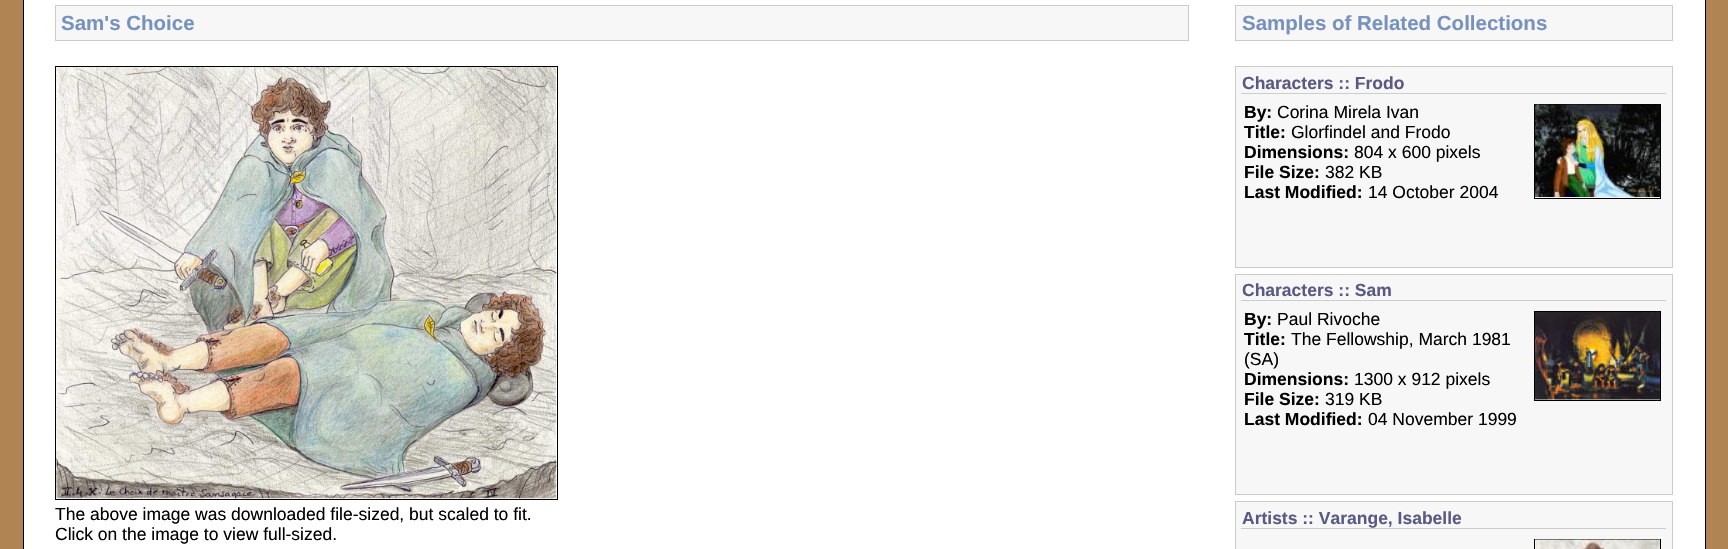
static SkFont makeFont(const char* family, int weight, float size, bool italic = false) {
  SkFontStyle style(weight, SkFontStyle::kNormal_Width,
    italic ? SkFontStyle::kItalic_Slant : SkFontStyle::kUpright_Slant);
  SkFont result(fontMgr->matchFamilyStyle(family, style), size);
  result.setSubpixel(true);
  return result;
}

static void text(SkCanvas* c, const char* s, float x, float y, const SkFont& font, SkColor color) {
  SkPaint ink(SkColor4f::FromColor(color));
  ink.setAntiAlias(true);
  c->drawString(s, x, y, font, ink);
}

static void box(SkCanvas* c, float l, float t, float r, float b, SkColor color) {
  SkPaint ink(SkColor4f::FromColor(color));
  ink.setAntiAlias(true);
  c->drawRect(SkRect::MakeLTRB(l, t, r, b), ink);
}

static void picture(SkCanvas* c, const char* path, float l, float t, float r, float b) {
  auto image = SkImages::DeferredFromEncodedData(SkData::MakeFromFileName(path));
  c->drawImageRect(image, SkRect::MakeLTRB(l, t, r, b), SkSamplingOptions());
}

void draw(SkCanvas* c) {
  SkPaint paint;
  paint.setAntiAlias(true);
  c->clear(0xffb08553);
  paint.setColor(0xffffffff);
  c->drawRect(SkRect::MakeLTRB(23.5f, -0.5f, 1705.5f, 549.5f), paint);
  paint.setStyle(SkPaint::kStroke_Style);
  paint.setStrokeWidth(1);
  paint.setColor(0xff000000);
  c->drawRect(SkRect::MakeLTRB(23.5f, -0.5f, 1705.5f, 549.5f), paint);
  paint.setStyle(SkPaint::kFill_Style);
  paint.setColor(0xfff7f7f7);
  c->drawRect(SkRect::MakeLTRB(55.5f, 5.5f, 1188.5f, 40.5f), paint);
  paint.setStyle(SkPaint::kStroke_Style);
  paint.setColor(0xffcccccc);
  c->drawRect(SkRect::MakeLTRB(55.5f, 5.5f, 1188.5f, 40.5f), paint);
  SkFont face1 = makeFont("Liberation Sans", 700, 20.5f);
  text(c, "Sam's Choice", 61, 30, face1, 0xff7792bc);
  paint.setColor(0xff000000);
  c->drawRect(SkRect::MakeLTRB(55.5f, 66.5f, 557.5f, 499.5f), paint);
  picture(c, "img_01.png", 56, 67, 557, 499);
  SkFont face2 = makeFont("Liberation Sans", 400, 17.5f);
  text(c, "The above image was downloaded file-sized, but scaled to fit.", 55, 520, face2, 0xff000000);
  text(c, "Click on the image to view full-sized.", 55, 540, face2, 0xff000000);
  paint.setStyle(SkPaint::kFill_Style);
  paint.setColor(0xfff7f7f7);
  c->drawRect(SkRect::MakeLTRB(1235.5f, 5.5f, 1672.5f, 40.5f), paint);
  paint.setStyle(SkPaint::kStroke_Style);
  paint.setColor(0xffcccccc);
  c->drawRect(SkRect::MakeLTRB(1235.5f, 5.5f, 1672.5f, 40.5f), paint);
  text(c, "Samples of Related Collections", 1242, 30, face1, 0xff7792bc);
  paint.setStyle(SkPaint::kFill_Style);
  paint.setColor(0xfff7f7f7);
  c->drawRect(SkRect::MakeLTRB(1235.5f, 66.5f, 1672.5f, 267.5f), paint);
  paint.setStyle(SkPaint::kStroke_Style);
  paint.setColor(0xffcccccc);
  c->drawRect(SkRect::MakeLTRB(1235.5f, 66.5f, 1672.5f, 267.5f), paint);
  box(c, 1241, 93, 1666, 94, 0xffcccccc);
  SkFont face3 = makeFont("Liberation Sans", 700, 17.5f);
  text(c, "Characters :: Frodo", 1242, 89, face3, 0xff595983);
  text(c, "By:", 1244, 118, face3, 0xff000000);
  text(c, "Corina Mirela Ivan", 1277, 118, face2, 0xff000000);
  text(c, "Title:", 1244, 138, face3, 0xff000000);
  text(c, "Glorfindel and Frodo", 1291, 138, face2, 0xff000000);
  text(c, "Dimensions:", 1244, 158, face3, 0xff000000);
  text(c, "804 x 600 pixels", 1354, 158, face2, 0xff000000);
  text(c, "File Size:", 1244, 178, face3, 0xff000000);
  text(c, "382 KB", 1325, 178, face2, 0xff000000);
  text(c, "Last Modified:", 1244, 198, face3, 0xff000000);
  text(c, "14 October 2004", 1368, 198, face2, 0xff000000);
  paint.setColor(0xff000000);
  c->drawRect(SkRect::MakeLTRB(1534.5f, 104.5f, 1660.5f, 198.5f), paint);
  picture(c, "img_02.png", 1535, 104, 1660, 197);
  paint.setStyle(SkPaint::kFill_Style);
  paint.setColor(0xfff7f7f7);
  c->drawRect(SkRect::MakeLTRB(1235.5f, 274.5f, 1672.5f, 494.5f), paint);
  paint.setStyle(SkPaint::kStroke_Style);
  paint.setColor(0xffcccccc);
  c->drawRect(SkRect::MakeLTRB(1235.5f, 274.5f, 1672.5f, 494.5f), paint);
  box(c, 1241, 300, 1666, 301, 0xffcccccc);
  text(c, "Characters :: Sam", 1242, 296, face3, 0xff595983);
  text(c, "By:", 1244, 325, face3, 0xff000000);
  text(c, "Paul Rivoche", 1277, 325, face2, 0xff000000);
  text(c, "Title:", 1244, 345, face3, 0xff000000);
  text(c, "The Fellowship, March 1981", 1291, 345, face2, 0xff000000);
  text(c, "(SA)", 1244, 365, face2, 0xff000000);
  text(c, "Dimensions:", 1244, 385, face3, 0xff000000);
  text(c, "1300 x 912 pixels", 1354, 385, face2, 0xff000000);
  text(c, "File Size:", 1244, 405, face3, 0xff000000);
  text(c, "319 KB", 1325, 405, face2, 0xff000000);
  text(c, "Last Modified:", 1244, 425, face3, 0xff000000);
  text(c, "04 November 1999", 1368, 425, face2, 0xff000000);
  paint.setColor(0xff000000);
  c->drawRect(SkRect::MakeLTRB(1534.5f, 311.5f, 1660.5f, 400.5f), paint);
  picture(c, "img_03.png", 1535, 312, 1660, 400);
  paint.setStyle(SkPaint::kFill_Style);
  paint.setColor(0xfff7f7f7);
  c->drawRect(SkRect::MakeLTRB(1235.5f, 501.5f, 1672.5f, 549.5f), paint);
  paint.setStyle(SkPaint::kStroke_Style);
  paint.setColor(0xffcccccc);
  c->drawRect(SkRect::MakeLTRB(1235.5f, 501.5f, 1672.5f, 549.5f), paint);
  box(c, 1241, 528, 1666, 529, 0xffcccccc);
  text(c, "Artists :: Varange, Isabelle", 1242, 524, face3, 0xff595983);
  paint.setColor(0xff000000);
  c->drawRect(SkRect::MakeLTRB(1534.5f, 539.5f, 1660.5f, 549.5f), paint);
  picture(c, "img_04.png", 1535, 539, 1660, 549);
}
